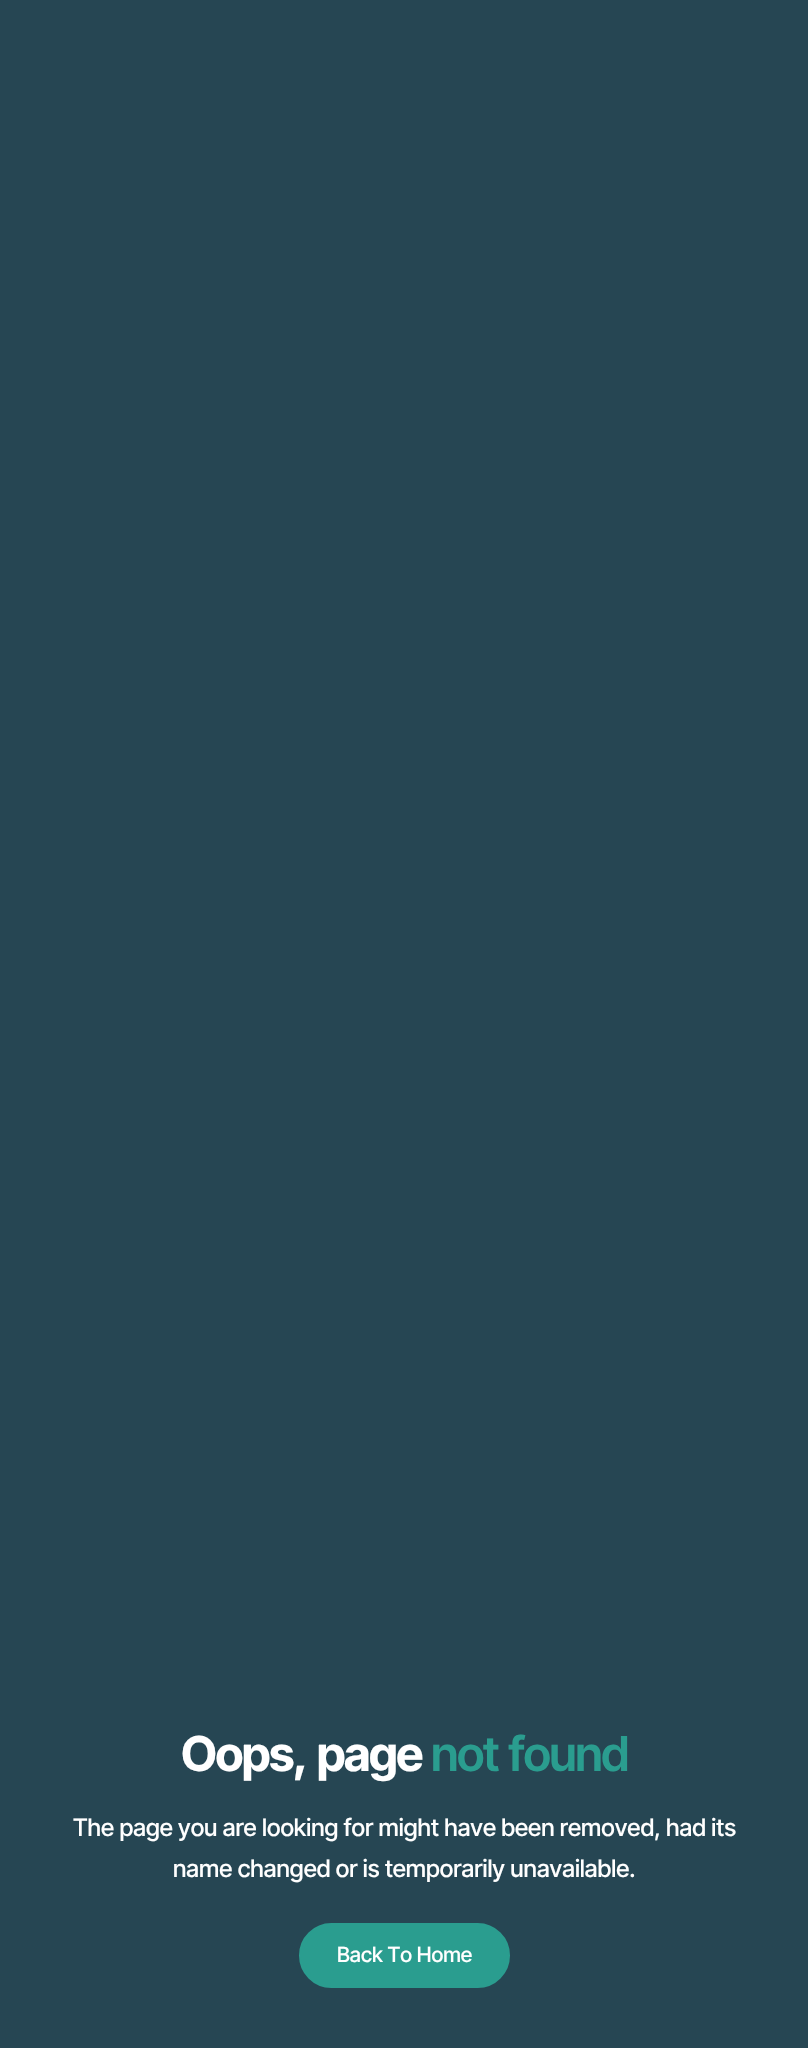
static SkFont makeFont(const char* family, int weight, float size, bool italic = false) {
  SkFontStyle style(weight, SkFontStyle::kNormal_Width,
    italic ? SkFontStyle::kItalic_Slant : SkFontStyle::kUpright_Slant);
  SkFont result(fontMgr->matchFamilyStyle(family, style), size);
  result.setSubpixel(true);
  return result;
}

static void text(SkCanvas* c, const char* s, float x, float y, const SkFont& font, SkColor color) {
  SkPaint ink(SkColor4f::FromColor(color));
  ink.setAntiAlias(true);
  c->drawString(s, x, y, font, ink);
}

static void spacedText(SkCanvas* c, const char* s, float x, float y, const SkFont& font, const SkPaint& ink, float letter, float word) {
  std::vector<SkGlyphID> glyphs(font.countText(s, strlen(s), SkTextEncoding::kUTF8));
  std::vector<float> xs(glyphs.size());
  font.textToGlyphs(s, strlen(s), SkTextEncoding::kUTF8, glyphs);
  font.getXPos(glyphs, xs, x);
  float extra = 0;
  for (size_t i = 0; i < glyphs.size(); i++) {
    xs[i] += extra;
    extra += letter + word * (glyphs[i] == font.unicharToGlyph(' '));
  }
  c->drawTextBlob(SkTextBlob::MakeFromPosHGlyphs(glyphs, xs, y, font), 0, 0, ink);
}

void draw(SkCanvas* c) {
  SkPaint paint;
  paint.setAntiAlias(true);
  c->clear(0xff264653);
  SkFont face1 = makeFont("Inter Tight", 700, 48);
  paint.setColor(0xffffffff);
  spacedText(c, "Oops, page", 181, 1771, face1, paint, -1.5f, 2);
  SkFont face2 = makeFont("Inter Tight", 600, 48);
  paint.setColor(0xff2a9d8f);
  spacedText(c, "not found", 431, 1771, face2, paint, -1.5f, 2);
  SkFont face3 = makeFont("Inter Tight", 500, 24);
  text(c, "The page you are looking for might have been removed, had its", 73, 1836, face3, 0xffffffff);
  text(c, "name changed or is temporarily unavailable.", 173, 1877, face3, 0xffffffff);
  c->drawRoundRect(SkRect::MakeLTRB(300, 1924, 509, 1987), 31.5f, 31.5f, paint);
  paint.setStyle(SkPaint::kStroke_Style);
  paint.setStrokeWidth(2);
  c->drawRoundRect(SkRect::MakeLTRB(300, 1924, 509, 1987), 31.5f, 31.5f, paint);
  SkFont face4 = makeFont("Inter Tight", 500, 21);
  text(c, "Back To Home", 337, 1962, face4, 0xffffffff);
}
